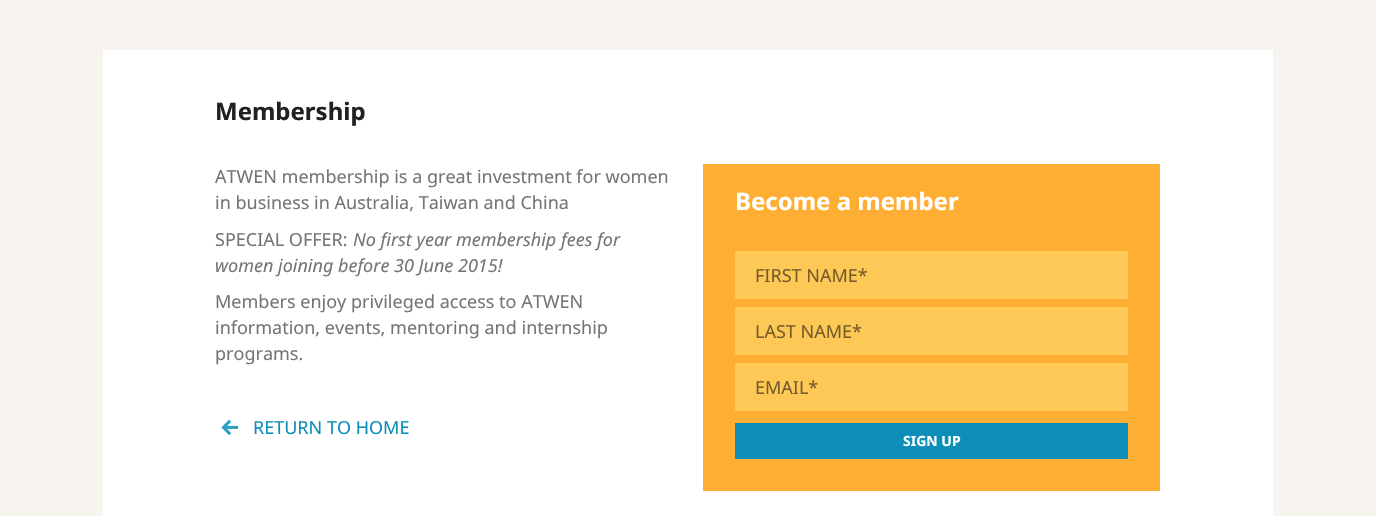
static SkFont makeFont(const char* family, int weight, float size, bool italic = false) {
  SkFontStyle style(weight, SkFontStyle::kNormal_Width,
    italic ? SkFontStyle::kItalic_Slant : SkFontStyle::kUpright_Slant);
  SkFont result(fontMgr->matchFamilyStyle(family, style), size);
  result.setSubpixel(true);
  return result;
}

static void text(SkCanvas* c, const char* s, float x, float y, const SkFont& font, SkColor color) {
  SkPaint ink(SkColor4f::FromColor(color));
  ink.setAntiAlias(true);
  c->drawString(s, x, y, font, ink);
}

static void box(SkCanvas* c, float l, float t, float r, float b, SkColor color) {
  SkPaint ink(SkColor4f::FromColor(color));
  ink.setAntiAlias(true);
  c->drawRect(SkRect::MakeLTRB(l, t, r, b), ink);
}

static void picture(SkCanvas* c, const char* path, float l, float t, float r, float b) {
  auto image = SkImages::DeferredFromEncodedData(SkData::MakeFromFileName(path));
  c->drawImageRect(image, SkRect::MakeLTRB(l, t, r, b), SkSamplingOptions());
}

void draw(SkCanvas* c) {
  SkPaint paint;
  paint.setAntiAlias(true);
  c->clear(0xfff7f4f0);
  box(c, 103, 50, 1273, 516, 0xffffffff);
  SkFont face1 = makeFont("Noto Sans", 700, 24);
  text(c, "Membership", 215, 120, face1, 0xff212121);
  SkFont face2 = makeFont("Noto Sans", 400, 18);
  text(c, "ATWEN membership is a great investment for women", 215, 183, face2, 0xff757575);
  text(c, "in business in Australia, Taiwan and China", 215, 209, face2, 0xff757575);
  text(c, "SPECIAL OFFER:", 215, 246, face2, 0xff757575);
  SkFont face3 = makeFont("Noto Sans", 400, 18, true);
  text(c, "No first year membership fees for", 353, 246, face3, 0xff757575);
  text(c, "women joining before 30 June 2015!", 215, 272, face3, 0xff757575);
  text(c, "Members enjoy privileged access to ATWEN", 215, 308, face2, 0xff757575);
  text(c, "information, events, mentoring and internship", 215, 334, face2, 0xff757575);
  text(c, "programs.", 215, 360, face2, 0xff757575);
  picture(c, "img_01.png", 221, 419, 239, 436);
  text(c, "RETURN TO HOME", 253, 434, face2, 0xff0c8eb8);
  box(c, 703, 164, 1160, 491, 0xffffae34);
  text(c, "Become a member", 735, 210, face1, 0xffffffff);
  box(c, 735, 251, 1128, 299, 0xfffec857);
  text(c, "FIRST NAME*", 755, 282, face2, 0xff755c28);
  box(c, 735, 307, 1128, 355, 0xfffec857);
  text(c, "LAST NAME*", 755, 338, face2, 0xff755c28);
  box(c, 735, 363, 1128, 411, 0xfffec857);
  text(c, "EMAIL*", 755, 394, face2, 0xff755c28);
  box(c, 735, 423, 1128, 459, 0xff0c8eb8);
  SkFont face4 = makeFont("Noto Sans", 700, 14);
  text(c, "SIGN UP", 903, 446, face4, 0xffffffff);
}
